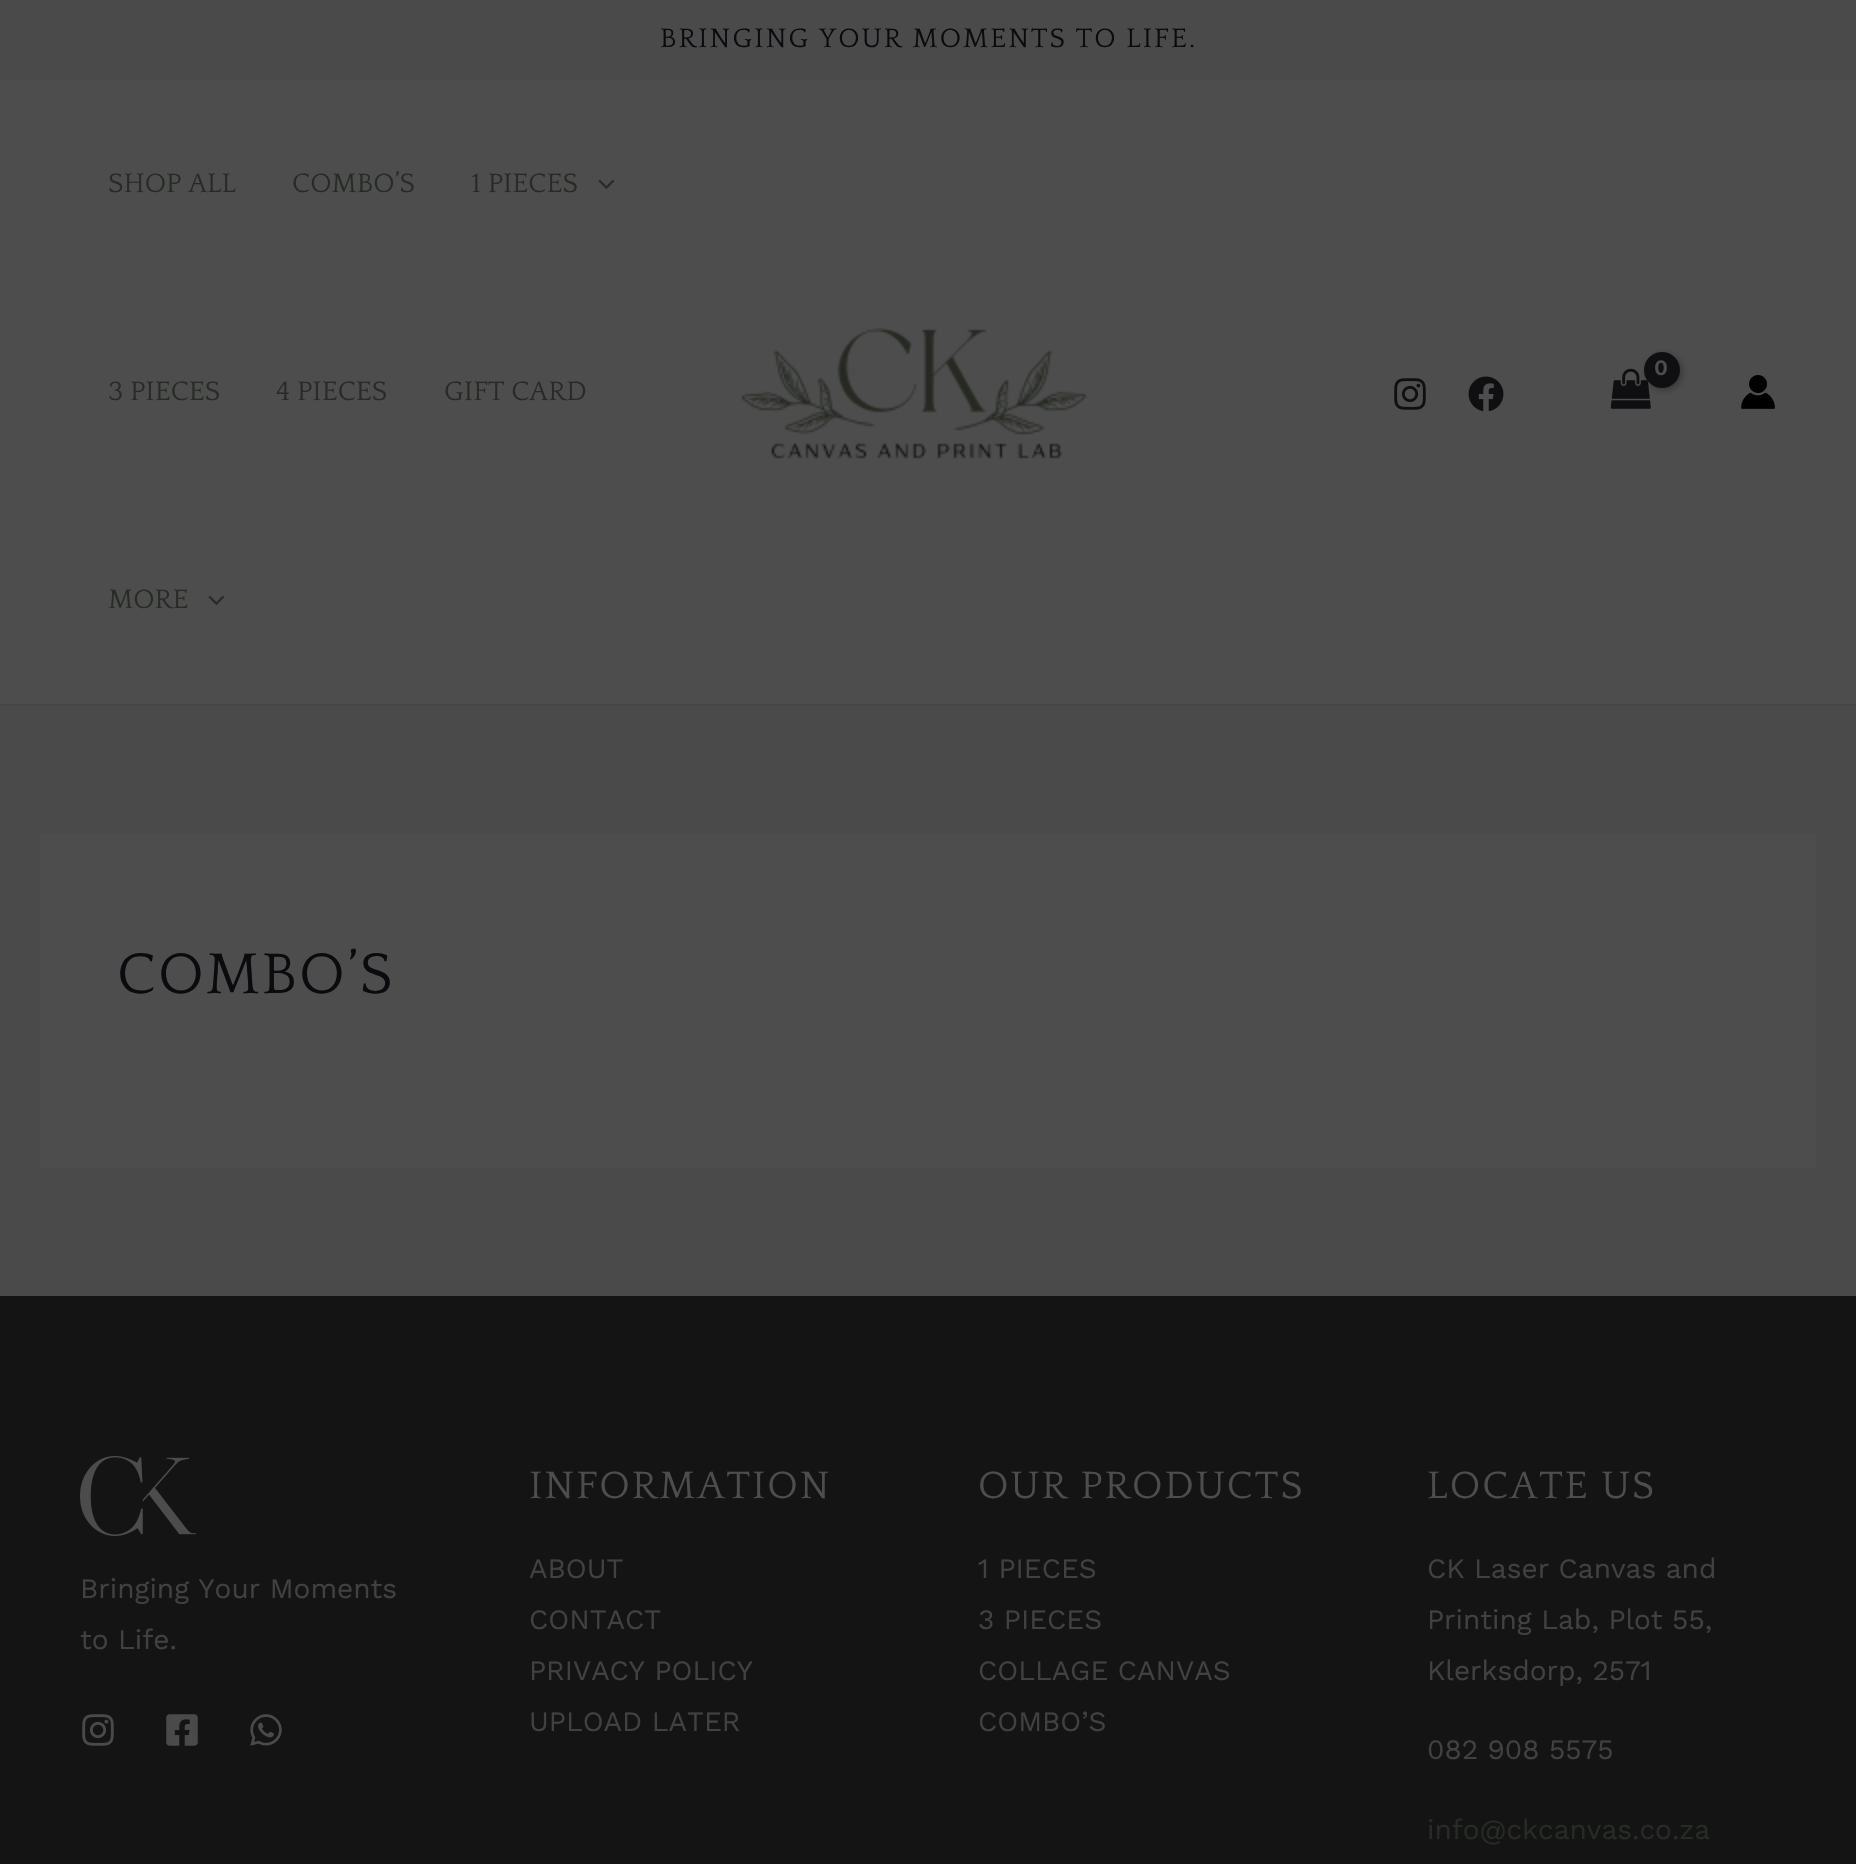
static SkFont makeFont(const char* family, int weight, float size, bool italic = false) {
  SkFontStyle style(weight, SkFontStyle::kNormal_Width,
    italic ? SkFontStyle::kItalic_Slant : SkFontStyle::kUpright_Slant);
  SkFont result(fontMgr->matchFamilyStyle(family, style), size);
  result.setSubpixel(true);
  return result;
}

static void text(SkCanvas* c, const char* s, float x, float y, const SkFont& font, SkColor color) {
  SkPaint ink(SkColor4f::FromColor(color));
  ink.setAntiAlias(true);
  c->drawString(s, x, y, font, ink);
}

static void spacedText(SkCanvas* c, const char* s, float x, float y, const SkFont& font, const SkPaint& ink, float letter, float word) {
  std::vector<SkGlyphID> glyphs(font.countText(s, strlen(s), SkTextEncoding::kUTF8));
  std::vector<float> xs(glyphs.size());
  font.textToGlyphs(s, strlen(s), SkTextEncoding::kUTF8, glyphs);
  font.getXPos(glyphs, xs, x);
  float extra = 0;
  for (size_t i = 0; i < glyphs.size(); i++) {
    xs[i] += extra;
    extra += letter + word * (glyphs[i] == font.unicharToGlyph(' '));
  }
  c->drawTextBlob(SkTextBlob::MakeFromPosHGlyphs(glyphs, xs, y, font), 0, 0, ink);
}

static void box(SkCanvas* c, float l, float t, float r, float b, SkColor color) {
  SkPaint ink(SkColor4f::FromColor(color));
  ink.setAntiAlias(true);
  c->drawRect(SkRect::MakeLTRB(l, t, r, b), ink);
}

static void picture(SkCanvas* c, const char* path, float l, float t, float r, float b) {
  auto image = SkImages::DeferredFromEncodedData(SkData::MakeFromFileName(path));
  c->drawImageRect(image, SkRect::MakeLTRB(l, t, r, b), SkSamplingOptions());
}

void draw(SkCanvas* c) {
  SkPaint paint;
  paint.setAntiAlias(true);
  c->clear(0xff4a4a4a);
  SkFont face1 = makeFont("Quattrocento", 400, 28);
  paint.setColor(0xff0b0a0e);
  spacedText(c, "BRINGING YOUR MOMENTS TO LIFE.", 660, 47, face1, paint, 2, 0);
  box(c, 0, 80, 1856, 704, 0xff4d4d4d);
  box(c, 0, 704, 1856, 706, 0xff464646);
  text(c, "SHOP ALL", 108, 192, face1, 0xff272b26);
  text(c, "COMBO’S", 292, 192, face1, 0xff272b26);
  text(c, "1 PIECES", 471, 192, face1, 0xff272b26);
  picture(c, "img_01.png", 598, 179, 614, 190);
  text(c, "3 PIECES", 108, 400, face1, 0xff272b26);
  text(c, "4 PIECES", 276, 400, face1, 0xff272b26);
  text(c, "GIFT CARD", 444, 400, face1, 0xff272b26);
  text(c, "MORE", 108, 608, face1, 0xff272b26);
  picture(c, "img_02.png", 208, 595, 225, 606);
  picture(c, "img_03.png", 741, 327, 1087, 459);
  picture(c, "img_04.png", 1610, 368, 1651, 409);
  paint.setColor(0x4d000000);
  paint.setMaskFilter(SkMaskFilter::MakeBlur(kNormal_SkBlurStyle, 3));
  c->drawRoundRect(SkRect::MakeLTRB(1646, 354, 1682, 390), 18, 18, paint);
  paint.setMaskFilter(nullptr);
  paint.setColor(0xff0f0e11);
  c->drawCircle(1662, 370, 18, paint);
  SkFont face2 = makeFont("Work Sans", 600, 22);
  paint.setColor(0xff4d4d4d);
  spacedText(c, "0", 1654, 375, face2, paint, -1, 0);
  picture(c, "img_05.png", 1394, 378, 1426, 410);
  picture(c, "img_06.png", 1468, 376, 1504, 412);
  picture(c, "img_07.png", 1741, 375, 1775, 409);
  box(c, 40, 834, 1816, 1168, 0xff4d4d4d);
  SkFont face3 = makeFont("Quattrocento", 400, 60);
  paint.setColor(0xff0b0a0e);
  spacedText(c, "COMBO’S", 117, 993, face3, paint, 2, 0);
  box(c, 0, 1296, 1856, 1864, 0xff141414);
  picture(c, "img_08.png", 80, 1456, 196, 1536);
  SkFont face4 = makeFont("Work Sans", 400, 28);
  text(c, "Bringing Your Moments", 80, 1598, face4, 0xff414141);
  text(c, "to Life.", 80, 1649, face4, 0xff414141);
  picture(c, "img_09.png", 82, 1714, 114, 1746);
  picture(c, "img_10.png", 166, 1714, 198, 1746);
  picture(c, "img_11.png", 250, 1714, 282, 1746);
  SkFont face5 = makeFont("Quattrocento", 400, 40);
  paint.setColor(0xff4d4d4d);
  spacedText(c, "INFORMATION", 529, 1498, face5, paint, 2, 0);
  text(c, "ABOUT", 529, 1578, face4, 0xff414141);
  text(c, "CONTACT", 529, 1629, face4, 0xff414141);
  text(c, "PRIVACY POLICY", 529, 1680, face4, 0xff414141);
  text(c, "UPLOAD LATER", 529, 1731, face4, 0xff414141);
  spacedText(c, "OUR PRODUCTS", 978, 1498, face5, paint, 2, 0);
  text(c, "1 PIECES", 978, 1578, face4, 0xff414141);
  text(c, "3 PIECES", 978, 1629, face4, 0xff414141);
  text(c, "COLLAGE CANVAS", 978, 1680, face4, 0xff414141);
  text(c, "COMBO’S", 978, 1731, face4, 0xff414141);
  spacedText(c, "LOCATE US", 1427, 1498, face5, paint, 2, 0);
  text(c, "CK Laser Canvas and", 1427, 1578, face4, 0xff414141);
  text(c, "Printing Lab, Plot 55,", 1427, 1629, face4, 0xff414141);
  text(c, "Klerksdorp, 2571", 1427, 1680, face4, 0xff414141);
  text(c, "082 908 5575", 1427, 1759, face4, 0xff414141);
  text(c, "info@ckcanvas.co.za", 1427, 1839, face4, 0xff272b26);
}
